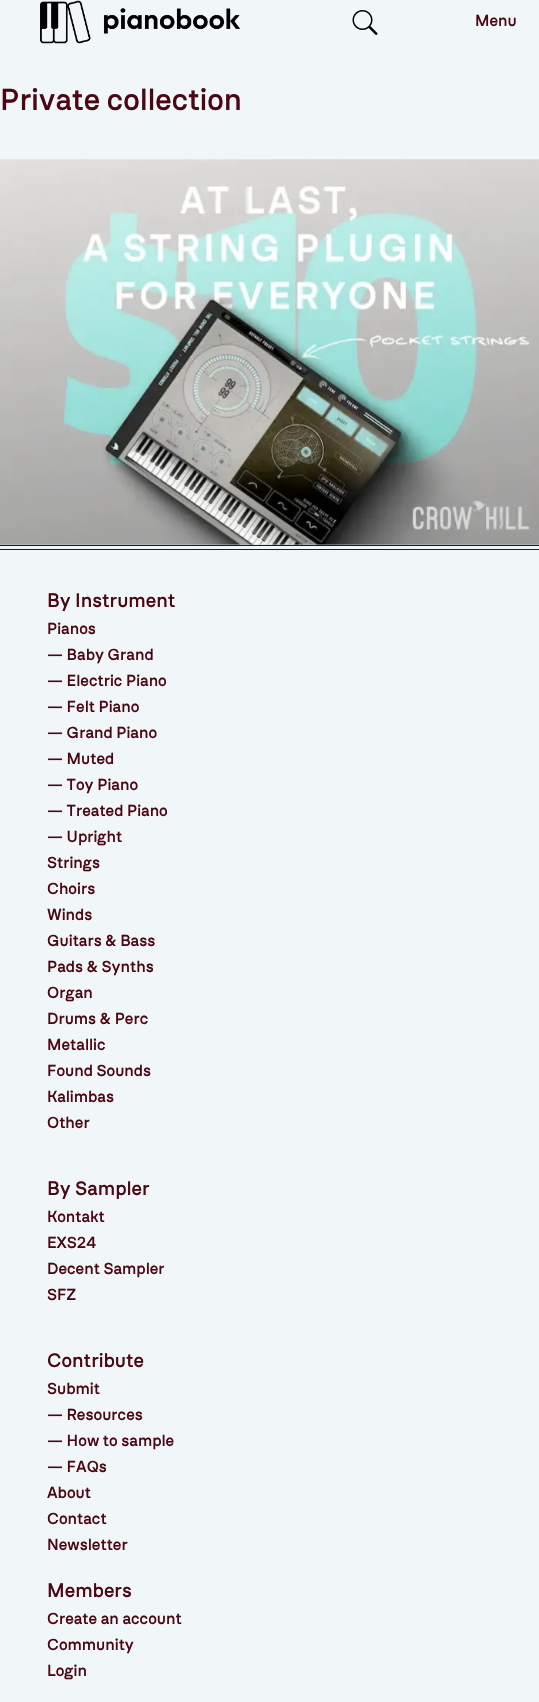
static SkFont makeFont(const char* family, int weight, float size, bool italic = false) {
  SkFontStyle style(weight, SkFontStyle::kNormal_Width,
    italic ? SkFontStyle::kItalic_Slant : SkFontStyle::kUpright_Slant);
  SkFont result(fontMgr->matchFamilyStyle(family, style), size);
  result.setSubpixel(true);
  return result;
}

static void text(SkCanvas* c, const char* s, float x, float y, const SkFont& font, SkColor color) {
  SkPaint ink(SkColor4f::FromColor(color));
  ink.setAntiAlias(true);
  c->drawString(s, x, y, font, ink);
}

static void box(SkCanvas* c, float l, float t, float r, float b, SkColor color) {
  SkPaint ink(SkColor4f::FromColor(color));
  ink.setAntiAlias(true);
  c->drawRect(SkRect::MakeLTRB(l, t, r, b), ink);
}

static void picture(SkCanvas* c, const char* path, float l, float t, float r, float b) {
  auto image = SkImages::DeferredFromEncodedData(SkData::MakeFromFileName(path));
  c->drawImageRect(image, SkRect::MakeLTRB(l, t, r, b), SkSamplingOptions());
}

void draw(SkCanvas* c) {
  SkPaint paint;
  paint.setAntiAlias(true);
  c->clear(0xfff1f6f8);
  picture(c, "img_01.png", 40, 0, 240, 44);
  picture(c, "img_02.png", 352, 10, 378, 35);
  SkFont face1 = makeFont("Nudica", 500, 16);
  text(c, "Menu", 475, 26, face1, 0xff4b0714);
  SkFont face2 = makeFont("Nudica", 500, 30.5f);
  text(c, "Private collection", 0, 110, face2, 0xff4b0714);
  picture(c, "img_03.png", 0, 159, 270, 545);
  picture(c, "img_05.png", 270, 159, 539, 545);
  picture(c, "img_04.png", 0, 159, 539, 545);
  box(c, 0, 545, 539, 546, 0xff4b0714);
  box(c, 0, 549, 539, 550, 0xff4b0714);
  SkFont face3 = makeFont("Nudica", 500, 19.5f);
  text(c, "By Instrument", 47, 607, face3, 0xff4b0714);
  text(c, "Pianos", 47, 634, face1, 0xff4b0714);
  text(c, "— Baby Grand", 47, 660, face1, 0xff4b0714);
  text(c, "— Electric Piano", 47, 686, face1, 0xff4b0714);
  text(c, "— Felt Piano", 47, 712, face1, 0xff4b0714);
  text(c, "— Grand Piano", 47, 738, face1, 0xff4b0714);
  text(c, "— Muted", 47, 764, face1, 0xff4b0714);
  text(c, "— Toy Piano", 47, 790, face1, 0xff4b0714);
  text(c, "— Treated Piano", 47, 816, face1, 0xff4b0714);
  text(c, "— Upright", 47, 842, face1, 0xff4b0714);
  text(c, "Strings", 47, 868, face1, 0xff4b0714);
  text(c, "Choirs", 47, 894, face1, 0xff4b0714);
  text(c, "Winds", 47, 920, face1, 0xff4b0714);
  text(c, "Guitars & Bass", 47, 946, face1, 0xff4b0714);
  text(c, "Pads & Synths", 47, 972, face1, 0xff4b0714);
  text(c, "Organ", 47, 998, face1, 0xff4b0714);
  text(c, "Drums & Perc", 47, 1024, face1, 0xff4b0714);
  text(c, "Metallic", 47, 1050, face1, 0xff4b0714);
  text(c, "Found Sounds", 47, 1076, face1, 0xff4b0714);
  text(c, "Kalimbas", 47, 1102, face1, 0xff4b0714);
  text(c, "Other", 47, 1128, face1, 0xff4b0714);
  text(c, "By Sampler", 47, 1195, face3, 0xff4b0714);
  text(c, "Kontakt", 47, 1222, face1, 0xff4b0714);
  text(c, "EXS24", 47, 1248, face1, 0xff4b0714);
  text(c, "Decent Sampler", 47, 1274, face1, 0xff4b0714);
  text(c, "SFZ", 47, 1300, face1, 0xff4b0714);
  text(c, "Contribute", 47, 1367, face3, 0xff4b0714);
  text(c, "Submit", 47, 1394, face1, 0xff4b0714);
  text(c, "— Resources", 47, 1420, face1, 0xff4b0714);
  text(c, "— How to sample", 47, 1446, face1, 0xff4b0714);
  text(c, "— FAQs", 47, 1472, face1, 0xff4b0714);
  text(c, "About", 47, 1498, face1, 0xff4b0714);
  text(c, "Contact", 47, 1524, face1, 0xff4b0714);
  text(c, "Newsletter", 47, 1550, face1, 0xff4b0714);
  text(c, "Members", 47, 1597, face3, 0xff4b0714);
  text(c, "Create an account", 47, 1624, face1, 0xff4b0714);
  text(c, "Community", 47, 1650, face1, 0xff4b0714);
  text(c, "Login", 47, 1676, face1, 0xff4b0714);
}
